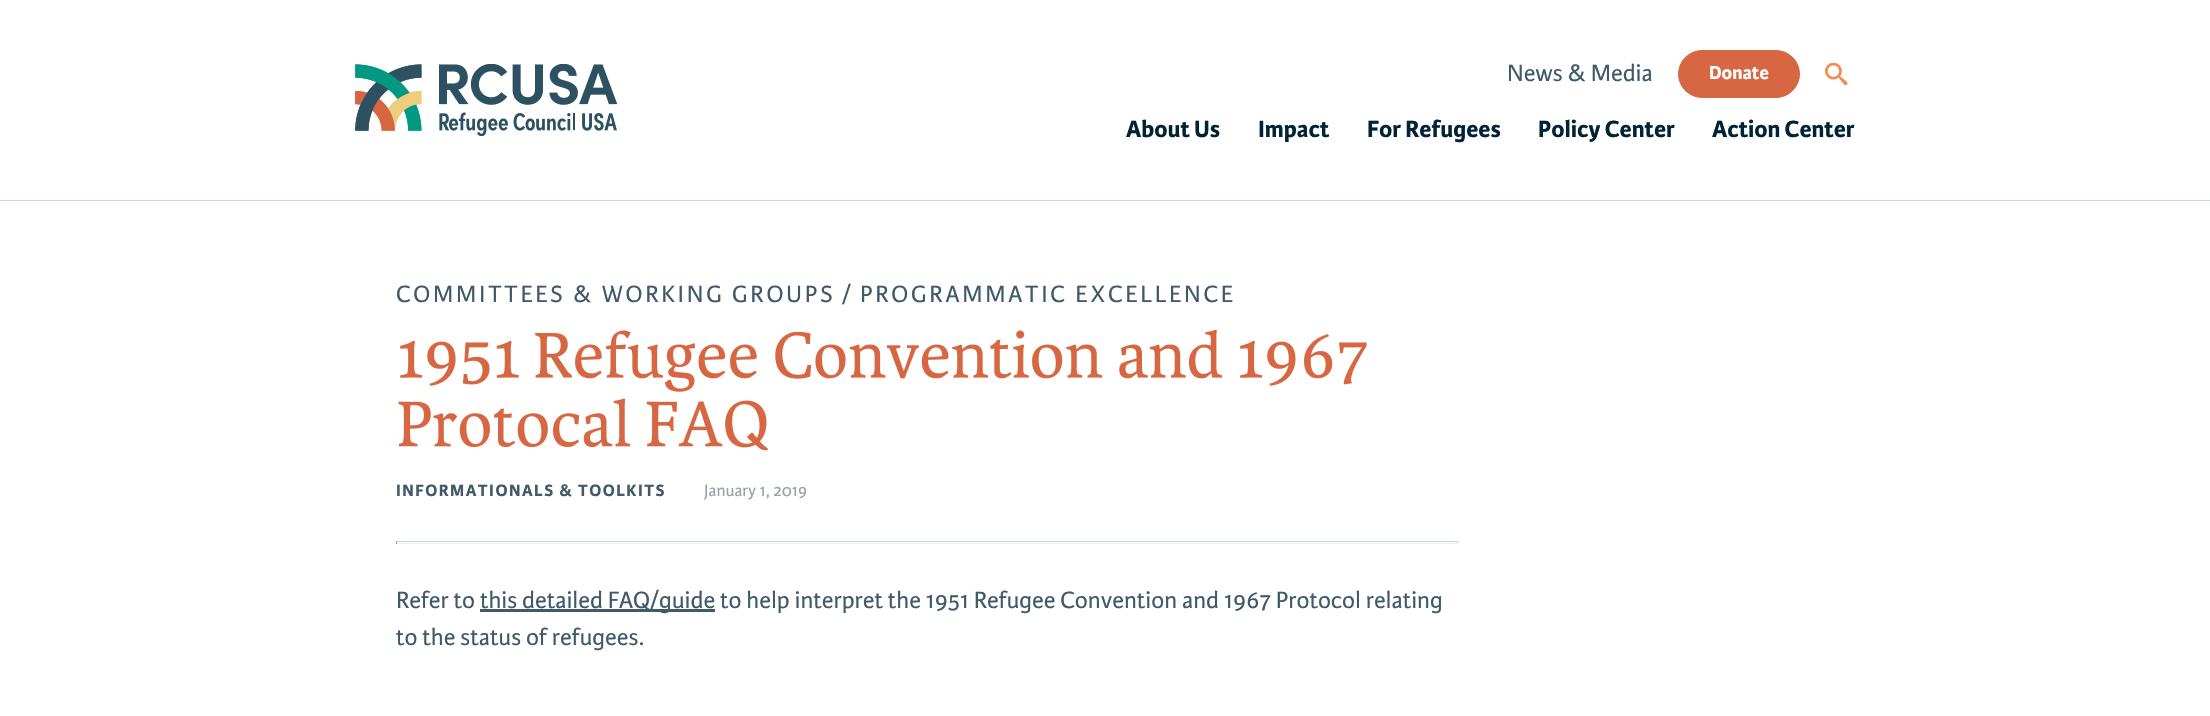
static SkFont makeFont(const char* family, int weight, float size, bool italic = false) {
  SkFontStyle style(weight, SkFontStyle::kNormal_Width,
    italic ? SkFontStyle::kItalic_Slant : SkFontStyle::kUpright_Slant);
  SkFont result(fontMgr->matchFamilyStyle(family, style), size);
  result.setSubpixel(true);
  return result;
}

static void text(SkCanvas* c, const char* s, float x, float y, const SkFont& font, SkColor color) {
  SkPaint ink(SkColor4f::FromColor(color));
  ink.setAntiAlias(true);
  c->drawString(s, x, y, font, ink);
}

static void spacedText(SkCanvas* c, const char* s, float x, float y, const SkFont& font, const SkPaint& ink, float letter, float word) {
  std::vector<SkGlyphID> glyphs(font.countText(s, strlen(s), SkTextEncoding::kUTF8));
  std::vector<float> xs(glyphs.size());
  font.textToGlyphs(s, strlen(s), SkTextEncoding::kUTF8, glyphs);
  font.getXPos(glyphs, xs, x);
  float extra = 0;
  for (size_t i = 0; i < glyphs.size(); i++) {
    xs[i] += extra;
    extra += letter + word * (glyphs[i] == font.unicharToGlyph(' '));
  }
  c->drawTextBlob(SkTextBlob::MakeFromPosHGlyphs(glyphs, xs, y, font), 0, 0, ink);
}

static void box(SkCanvas* c, float l, float t, float r, float b, SkColor color) {
  SkPaint ink(SkColor4f::FromColor(color));
  ink.setAntiAlias(true);
  c->drawRect(SkRect::MakeLTRB(l, t, r, b), ink);
}

static void picture(SkCanvas* c, const char* path, float l, float t, float r, float b) {
  auto image = SkImages::DeferredFromEncodedData(SkData::MakeFromFileName(path));
  c->drawImageRect(image, SkRect::MakeLTRB(l, t, r, b), SkSamplingOptions());
}

void draw(SkCanvas* c) {
  SkPaint paint;
  paint.setAntiAlias(true);
  c->clear(0xffffffff);
  box(c, 0, 200, 2210, 201, 0xffc7dbe6);
  picture(c, "img_01.png", 355, 64, 617, 136);
  SkFont face1 = makeFont("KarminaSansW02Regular", 400, 25);
  text(c, "News & Media", 1507, 81, face1, 0xff405a69);
  paint.setColor(0xffd76643);
  c->drawRoundRect(SkRect::MakeLTRB(1678.5f, 50.5f, 1799.5f, 97.5f), 23.5f, 23.5f, paint);
  paint.setStyle(SkPaint::kStroke_Style);
  paint.setStrokeWidth(1);
  c->drawRoundRect(SkRect::MakeLTRB(1678.5f, 50.5f, 1799.5f, 97.5f), 23.5f, 23.5f, paint);
  SkFont face2 = makeFont("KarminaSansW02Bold", 700, 20);
  text(c, "Donate", 1709, 79, face2, 0xffffffff);
  picture(c, "img_02.png", 1825, 62, 1848, 86);
  SkFont face3 = makeFont("KarminaSansW02Bold", 700, 25);
  text(c, "About Us", 1126, 137, face3, 0xff002337);
  text(c, "Impact", 1258, 137, face3, 0xff002337);
  text(c, "For Refugees", 1367, 137, face3, 0xff002337);
  text(c, "Policy Center", 1538, 137, face3, 0xff002337);
  text(c, "Action Center", 1712, 137, face3, 0xff002337);
  paint.setStyle(SkPaint::kFill_Style);
  paint.setColor(0xff405a69);
  spacedText(c, "COMMITTEES & WORKING GROUPS", 396, 302, face1, paint, 2.75f, 0);
  spacedText(c, "/", 842, 302, face1, paint, 2.75f, 0);
  spacedText(c, "PROGRAMMATIC EXCELLENCE", 860, 302, face1, paint, 2.75f, 0);
  picture(c, "img_03.png", 400, 329, 1367, 392);
  picture(c, "img_04.png", 398, 398, 768, 451);
  SkFont face4 = makeFont("KarminaSansW02Bold", 700, 17.5f);
  spacedText(c, "INFORMATIONALS & TOOLKITS", 396, 496, face4, paint, 1.5f, 0);
  SkFont face5 = makeFont("KarminaSansW02Regular", 400, 17.5f);
  text(c, "January 1, 2019", 704, 496, face5, 0xff99a1a6);
  box(c, 396, 541, 1459, 542, 0xffc7dbe6);
  box(c, 1458, 541, 1459, 544, 0xffeeeeee);
  box(c, 396, 543, 1459, 544, 0xffeeeeee);
  box(c, 396, 541, 397, 544, 0xff9f9f9f);
  text(c, "Refer to", 396, 608, face1, 0xff405a69);
  box(c, 480, 609, 715, 612, 0xff405a69);
  text(c, "this detailed FAQ/guide", 480, 608, face1, 0xff405a69);
  text(c, "to help interpret the 1951 Refugee Convention and 1967 Protocol relating", 720, 608, face1, 0xff405a69);
  text(c, "to the status of refugees.", 396, 645, face1, 0xff405a69);
}
